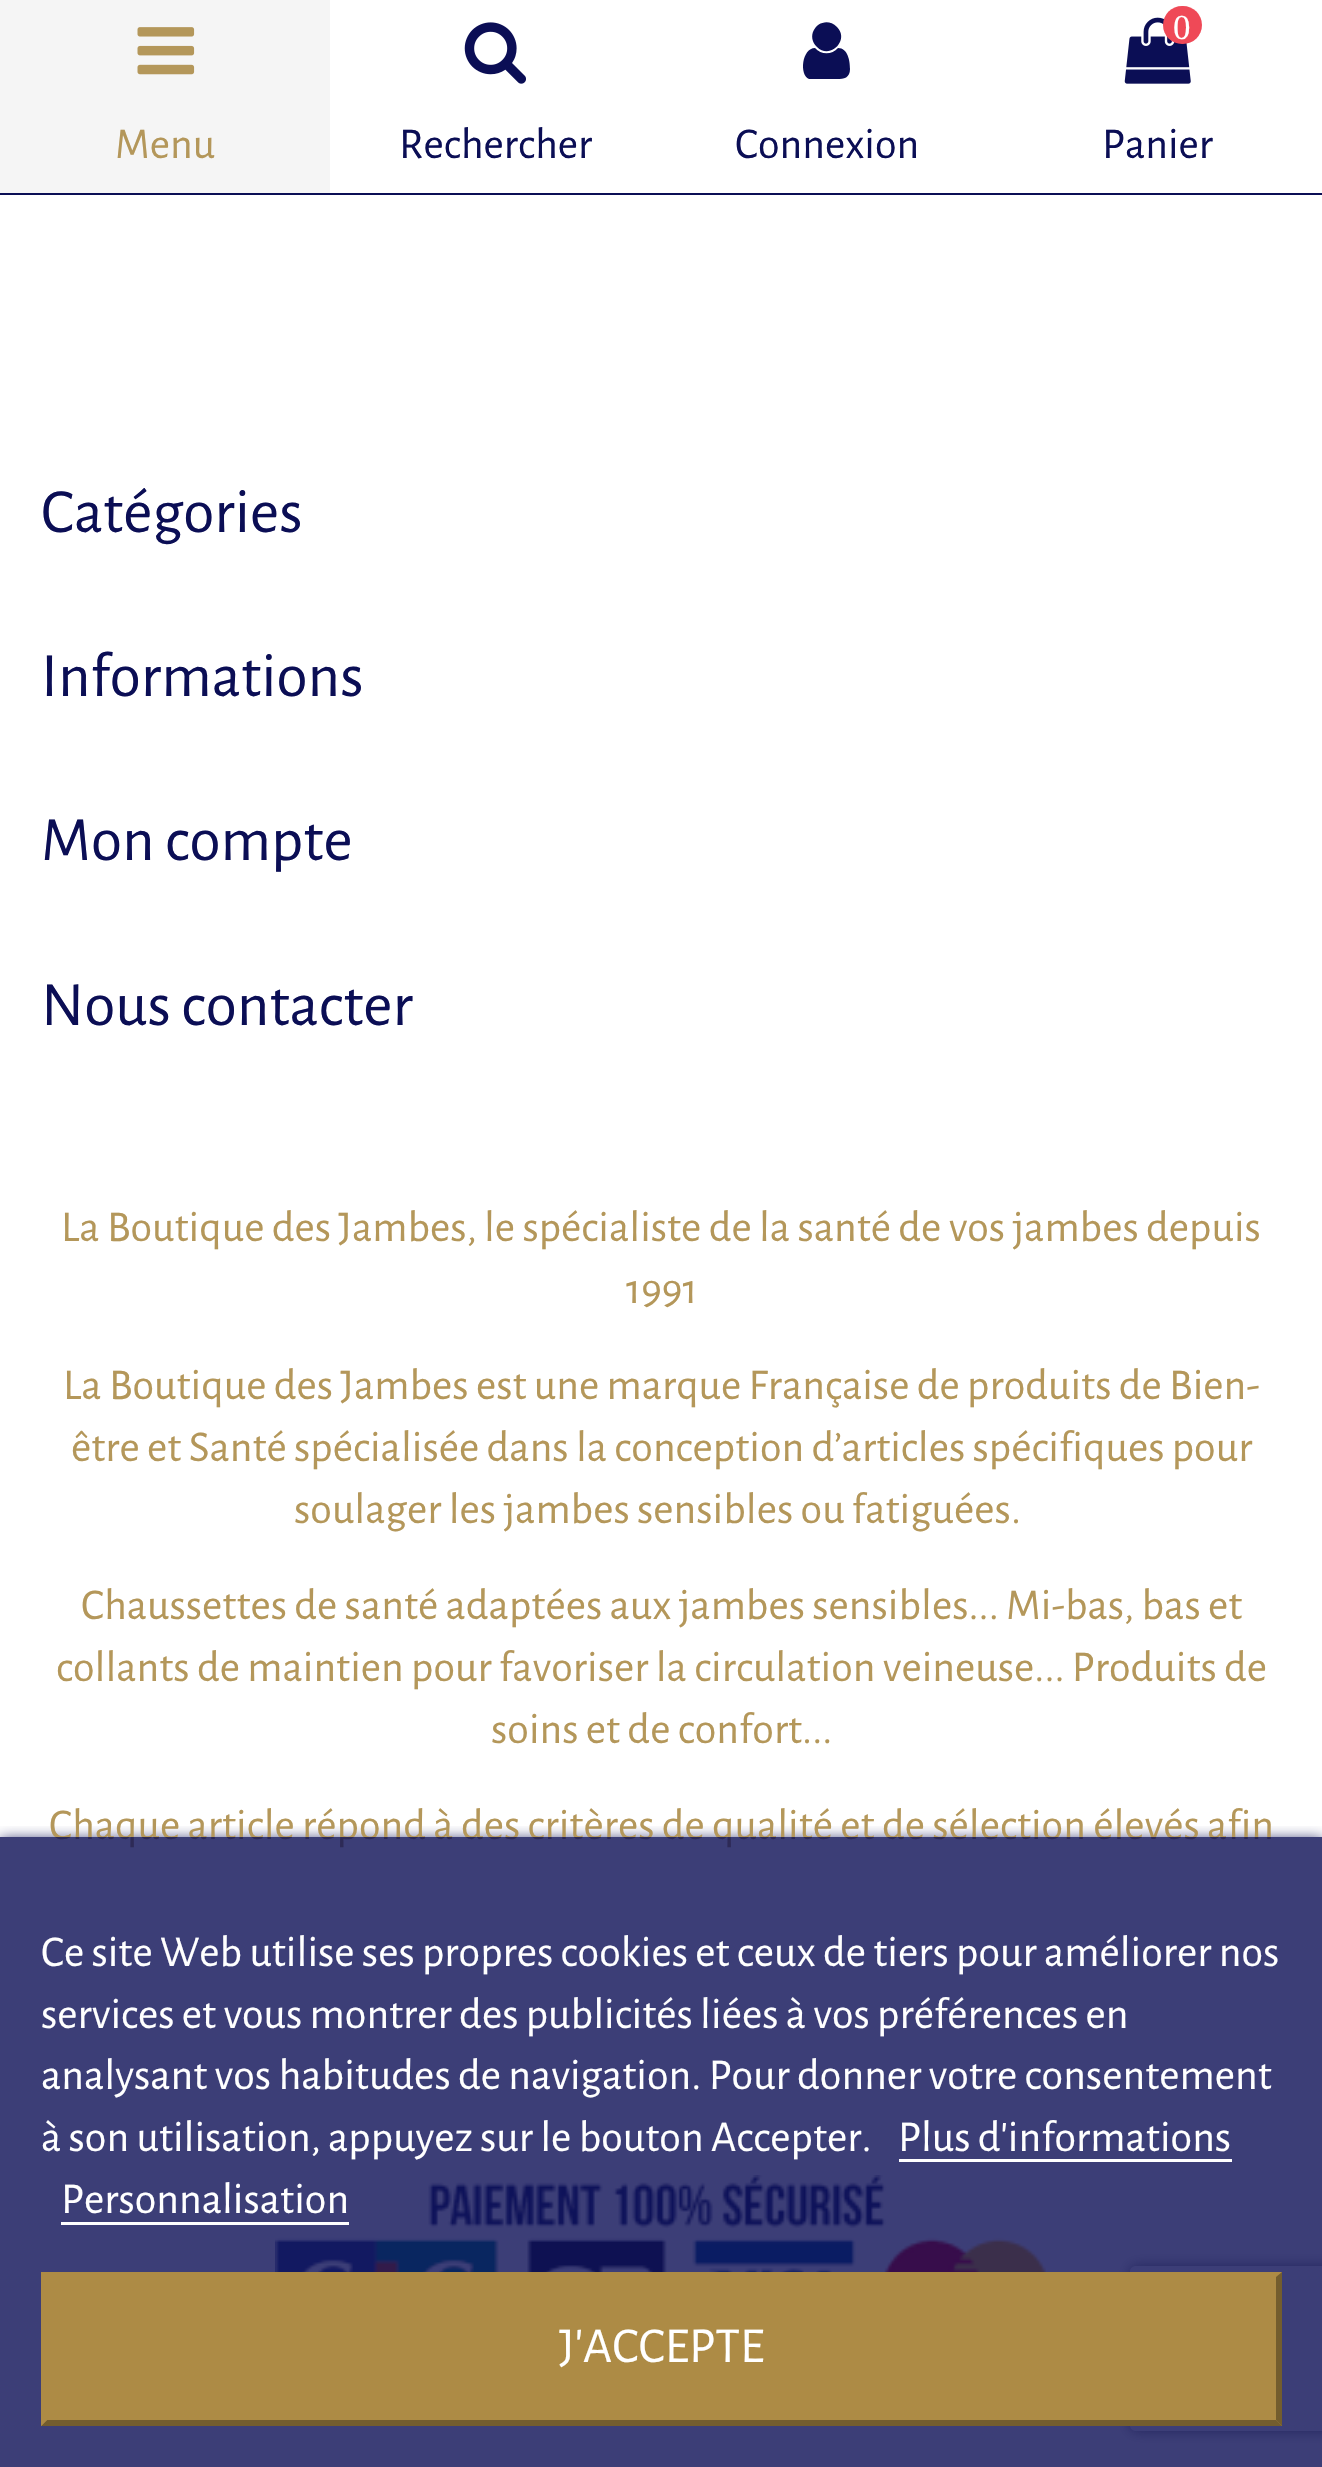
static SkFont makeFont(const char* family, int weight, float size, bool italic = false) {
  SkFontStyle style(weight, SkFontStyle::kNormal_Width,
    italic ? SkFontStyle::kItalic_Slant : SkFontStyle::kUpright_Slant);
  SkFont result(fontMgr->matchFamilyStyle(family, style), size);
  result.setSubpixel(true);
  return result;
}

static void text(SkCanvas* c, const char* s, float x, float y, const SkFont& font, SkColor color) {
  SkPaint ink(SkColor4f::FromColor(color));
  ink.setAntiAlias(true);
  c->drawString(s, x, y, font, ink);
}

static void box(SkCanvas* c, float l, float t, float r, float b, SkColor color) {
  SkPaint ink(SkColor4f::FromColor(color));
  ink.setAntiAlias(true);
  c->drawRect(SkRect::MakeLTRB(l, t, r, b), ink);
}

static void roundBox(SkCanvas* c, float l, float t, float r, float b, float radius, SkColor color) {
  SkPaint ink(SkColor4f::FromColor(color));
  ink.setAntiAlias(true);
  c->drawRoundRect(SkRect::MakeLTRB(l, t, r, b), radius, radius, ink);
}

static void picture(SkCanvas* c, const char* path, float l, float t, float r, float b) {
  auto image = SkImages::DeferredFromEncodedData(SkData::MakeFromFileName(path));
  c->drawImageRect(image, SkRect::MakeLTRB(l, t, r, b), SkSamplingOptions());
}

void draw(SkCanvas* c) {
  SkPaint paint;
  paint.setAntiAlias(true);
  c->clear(0xffffffff);
  box(c, 0, 0, 330, 193, 0xfff5f5f5);
  picture(c, "img_01.png", 137, 27, 195, 75);
  SkFont face1 = makeFont("Alegreya Sans", 400, 44);
  text(c, "Menu", 115, 158, face1, 0xffb4975a);
  picture(c, "img_02.png", 464, 22, 526, 84);
  text(c, "Rechercher", 399, 158, face1, 0xff0b0e55);
  paint.setColor(0xff0b0e55);
  c->drawPath(SkPathBuilder().moveTo(850, 69).cubicTo(850, 78, 844, 79, 837, 79).lineTo(809, 79).cubicTo(799, 75, 802, 48, 815, 48).cubicTo(821, 55, 832, 55, 838, 48).cubicTo(848, 48, 850, 61, 850, 69).close().moveTo(837, 27).cubicTo(850, 40, 830, 60, 817, 47).cubicTo(803, 33, 823, 13, 837, 27).close().detach(), paint);
  text(c, "Connexion", 735, 158, face1, 0xff0b0e55);
  picture(c, "img_03.png", 1124, 17, 1191, 84);
  roundBox(c, 1163, 6, 1202, 44, 19, 0xffef4957);
  SkFont face2 = makeFont("Liberation Serif", 400, 35);
  text(c, "0", 1173, 39, face2, 0xffffffff);
  text(c, "Panier", 1102, 158, face1, 0xff0b0e55);
  box(c, 0, 193, 1322, 195, 0xff0b0e55);
  SkFont face3 = makeFont("Alegreya Sans", 400, 63.25f);
  text(c, "Catégories", 41, 532, face3, 0xff0b0e55);
  text(c, "Informations", 41, 696, face3, 0xff0b0e55);
  text(c, "Mon compte", 41, 860, face3, 0xff0b0e55);
  text(c, "Nous contacter", 41, 1025, face3, 0xff0b0e55);
  picture(c, "img_04.png", 275, 2175, 1048, 2272);
  c->save();
  c->clipRect(SkRect::MakeLTRB(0, 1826, 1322, 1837));
  paint.setMaskFilter(SkMaskFilter::MakeBlur(kNormal_SkBlurStyle, 7));
  c->drawRect(SkRect::MakeLTRB(0, 1840, 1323, 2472), paint);
  paint.setMaskFilter(nullptr);
  c->restore();
  text(c, "Chaque article répond à des critères de qualité et de sélection élevés afin", 49, 1839, face1, 0xffb4975a);
  c->save();
  c->clipPath(SkPathBuilder(SkPathFillType::kEvenOdd).moveTo(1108, 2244).lineTo(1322, 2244).lineTo(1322, 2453).lineTo(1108, 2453).close().moveTo(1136, 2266).lineTo(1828, 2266).cubicTo(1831.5f, 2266, 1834, 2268.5f, 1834, 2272).lineTo(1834, 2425).cubicTo(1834, 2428.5f, 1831.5f, 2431, 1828, 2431).lineTo(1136, 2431).cubicTo(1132.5f, 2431, 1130, 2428.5f, 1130, 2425).lineTo(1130, 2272).cubicTo(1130, 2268.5f, 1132.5f, 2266, 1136, 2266).close().detach(), true);
  paint.setColor(0xff808080);
  paint.setMaskFilter(SkMaskFilter::MakeBlur(kNormal_SkBlurStyle, 7));
  c->drawRoundRect(SkRect::MakeLTRB(1130, 2266, 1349, 2431), 6, 6, paint);
  paint.setMaskFilter(nullptr);
  c->restore();
  box(c, 0, 1837, 1322, 2467, 0xcc0b0e55);
  text(c, "Ce site Web utilise ses propres cookies et ceux de tiers pour améliorer nos", 41, 1966, face1, 0xffffffff);
  text(c, "services et vous montrer des publicités liées à vos préférences en", 41, 2028, face1, 0xffffffff);
  text(c, "analysant vos habitudes de navigation. Pour donner votre consentement", 41, 2089, face1, 0xffffffff);
  text(c, "à son utilisation, appuyez sur le bouton Accepter.", 41, 2151, face1, 0xffffffff);
  text(c, "Plus d'informations", 898, 2151, face1, 0xffffffff);
  box(c, 899, 2159, 1232, 2162, 0xffffffff);
  text(c, "Personnalisation", 61, 2213, face1, 0xffffffff);
  box(c, 61, 2222, 349, 2225, 0xffffffff);
  box(c, 41, 2272, 1282, 2426, 0xffad8b45);
  paint.setColor(0xff735d2e);
  c->drawPath(SkPathBuilder().moveTo(1282, 2272).lineTo(1282, 2426).lineTo(1276, 2420).lineTo(1276, 2277).close().detach(), paint);
  c->drawPath(SkPathBuilder().moveTo(1282, 2426).lineTo(41, 2426).lineTo(47, 2420).lineTo(1276, 2420).close().detach(), paint);
  paint.setColor(0xffad8b45);
  c->drawPath(SkPathBuilder().moveTo(41, 2426).lineTo(41, 2272).lineTo(47, 2277).lineTo(47, 2420).close().detach(), paint);
  SkFont face4 = makeFont("Alegreya Sans", 400, 50.5f);
  text(c, "J'ACCEPTE", 559, 2362, face4, 0xffffffff);
  text(c, "La Boutique des Jambes, le spécialiste de la santé de vos jambes depuis", 61, 1241, face1, 0xffb4975a);
  text(c, "1991", 626, 1303, face1, 0xffb4975a);
  text(c, "La Boutique des Jambes est une marque Française de produits de Bien-", 63, 1399, face1, 0xffb4975a);
  text(c, "être et Santé spécialisée dans la conception d’articles spécifiques pour", 71, 1461, face1, 0xffb4975a);
  text(c, "soulager les jambes sensibles ou fatiguées.", 294, 1523, face1, 0xffb4975a);
  text(c, "Chaussettes de santé adaptées aux jambes sensibles... Mi-bas, bas et", 81, 1619, face1, 0xffb4975a);
  text(c, "collants de maintien pour favoriser la circulation veineuse... Produits de", 56, 1681, face1, 0xffb4975a);
  text(c, "soins et de confort...", 491, 1743, face1, 0xffb4975a);
}
